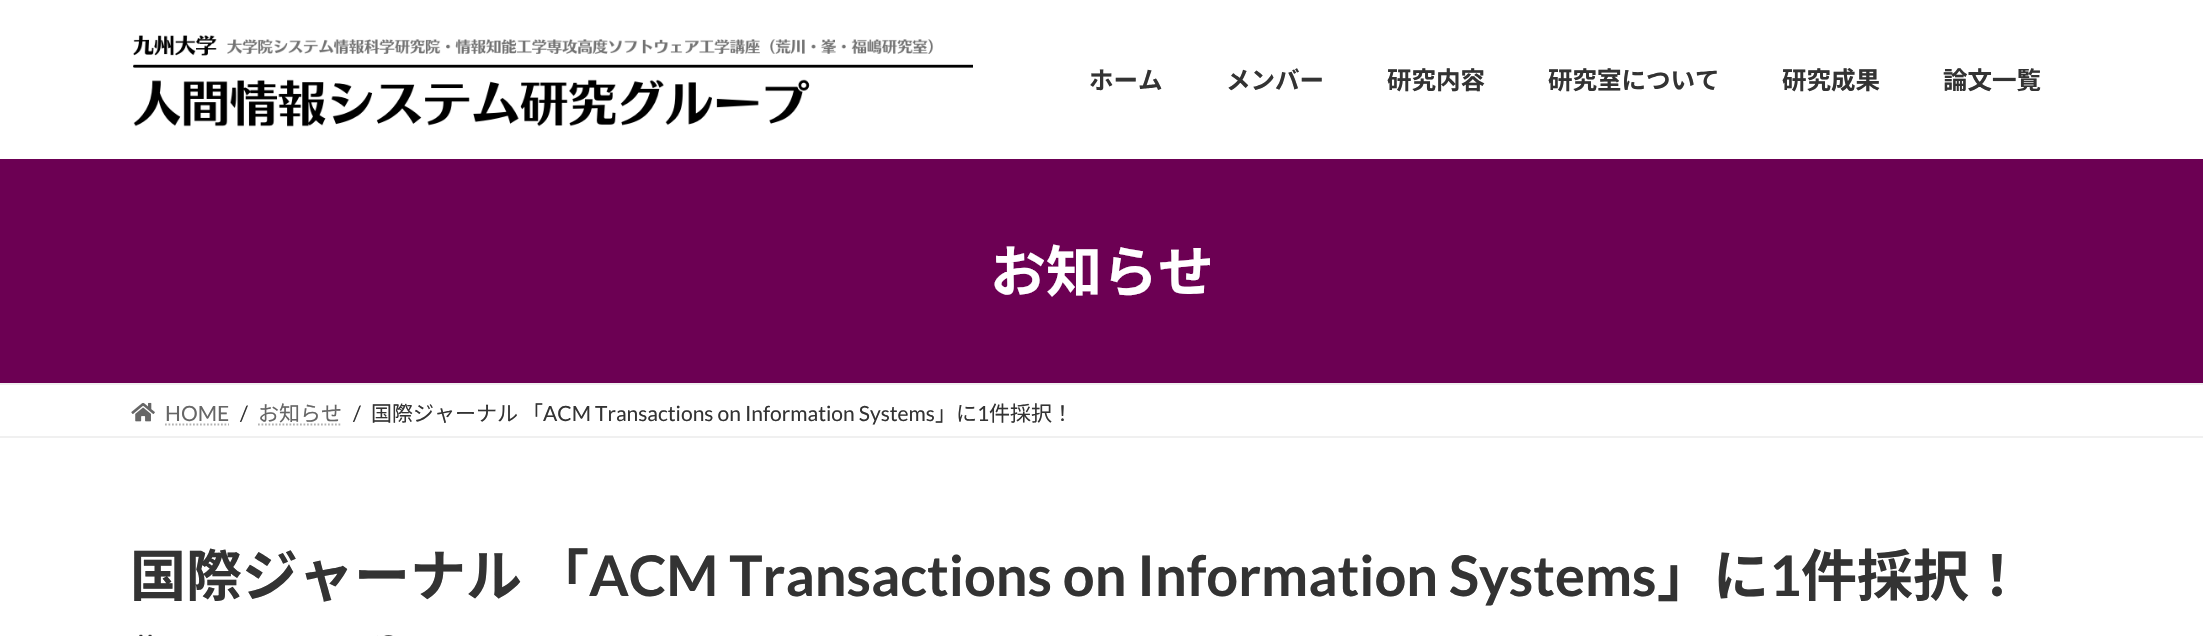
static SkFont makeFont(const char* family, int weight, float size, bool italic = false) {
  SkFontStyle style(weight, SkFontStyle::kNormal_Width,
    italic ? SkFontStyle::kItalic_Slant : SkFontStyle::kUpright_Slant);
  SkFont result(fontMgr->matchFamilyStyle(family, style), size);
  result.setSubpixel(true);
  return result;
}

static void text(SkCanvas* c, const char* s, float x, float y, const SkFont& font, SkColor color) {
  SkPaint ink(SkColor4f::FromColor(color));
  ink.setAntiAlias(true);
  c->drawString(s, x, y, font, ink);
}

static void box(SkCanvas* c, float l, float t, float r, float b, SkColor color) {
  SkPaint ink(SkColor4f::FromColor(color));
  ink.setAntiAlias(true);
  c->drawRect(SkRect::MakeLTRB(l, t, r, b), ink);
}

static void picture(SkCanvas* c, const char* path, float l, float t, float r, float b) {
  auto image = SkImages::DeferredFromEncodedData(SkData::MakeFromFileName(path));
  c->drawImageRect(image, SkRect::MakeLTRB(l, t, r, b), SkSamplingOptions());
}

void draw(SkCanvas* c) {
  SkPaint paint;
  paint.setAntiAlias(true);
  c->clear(0xffffffff);
  picture(c, "img_01.png", 133, 35, 973, 127);
  SkFont face1 = makeFont("Noto Sans JP", 700, 24.5f);
  text(c, "ホーム", 1089, 89, face1, 0xff333333);
  text(c, "メンバー", 1226, 89, face1, 0xff333333);
  text(c, "研究内容", 1387, 89, face1, 0xff333333);
  text(c, "研究室について", 1548, 89, face1, 0xff333333);
  text(c, "研究成果", 1782, 89, face1, 0xff333333);
  text(c, "論文一覧", 1943, 89, face1, 0xff333333);
  box(c, 0, 159, 2203, 383, 0xff6c0053);
  SkFont face2 = makeFont("Noto Sans JP", 700, 56);
  text(c, "お知らせ", 990, 292, face2, 0xffffffff);
  box(c, 0, 383, 2203, 385, 0xfff0f0f0);
  box(c, 0, 436, 2203, 438, 0xfff0f0f0);
  picture(c, "img_02.png", 131, 402, 155, 422);
  SkFont face3 = makeFont("Lato", 400, 21);
  text(c, "HOME", 165, 421, face3, 0xff666666);
  paint.setStyle(SkPaint::kStroke_Style);
  paint.setStrokeWidth(1.8f);
  paint.setColor(0xffb3b3b3);
  paint.setPathEffect(SkDashPathEffect::Make({{1.75f, 1.75f}}, 0));
  c->drawPath(SkPathBuilder().moveTo(165, 424.5f).lineTo(229, 424.5f).detach(), paint);
  paint.setPathEffect(nullptr);
  text(c, "/", 240, 421, face3, 0xff333333);
  SkFont face4 = makeFont("Noto Sans JP", 400, 21);
  text(c, "お知らせ", 258, 421, face4, 0xff666666);
  paint.setPathEffect(SkDashPathEffect::Make({{1.75f, 1.75f}}, 0));
  c->drawPath(SkPathBuilder().moveTo(258, 424.5f).lineTo(342, 424.5f).detach(), paint);
  paint.setPathEffect(nullptr);
  text(c, "/", 353, 421, face3, 0xff333333);
  text(c, "国際ジャーナル", 371, 421, face4, 0xff333333);
  text(c, "「", 522, 421, face4, 0xff333333);
  text(c, "ACM Transactions on Information Systems", 543, 421, face3, 0xff333333);
  text(c, "」に", 935, 421, face4, 0xff333333);
  text(c, "1", 977, 421, face3, 0xff333333);
  text(c, "件採択！", 989, 421, face4, 0xff333333);
  text(c, "国際ジャーナル", 130, 596, face2, 0xff333333);
  text(c, "「", 533, 596, face2, 0xff333333);
  SkFont face5 = makeFont("Lato", 700, 56);
  text(c, "ACM Transactions on Information Systems", 589, 596, face5, 0xff333333);
  text(c, "」に", 1657, 596, face2, 0xff333333);
  text(c, "1", 1769, 596, face5, 0xff333333);
  text(c, "件採択！", 1801, 596, face2, 0xff333333);
  picture(c, "img_03.png", 139, 634, 152, 636);
  picture(c, "img_04.png", 377, 635, 393, 636);
}
